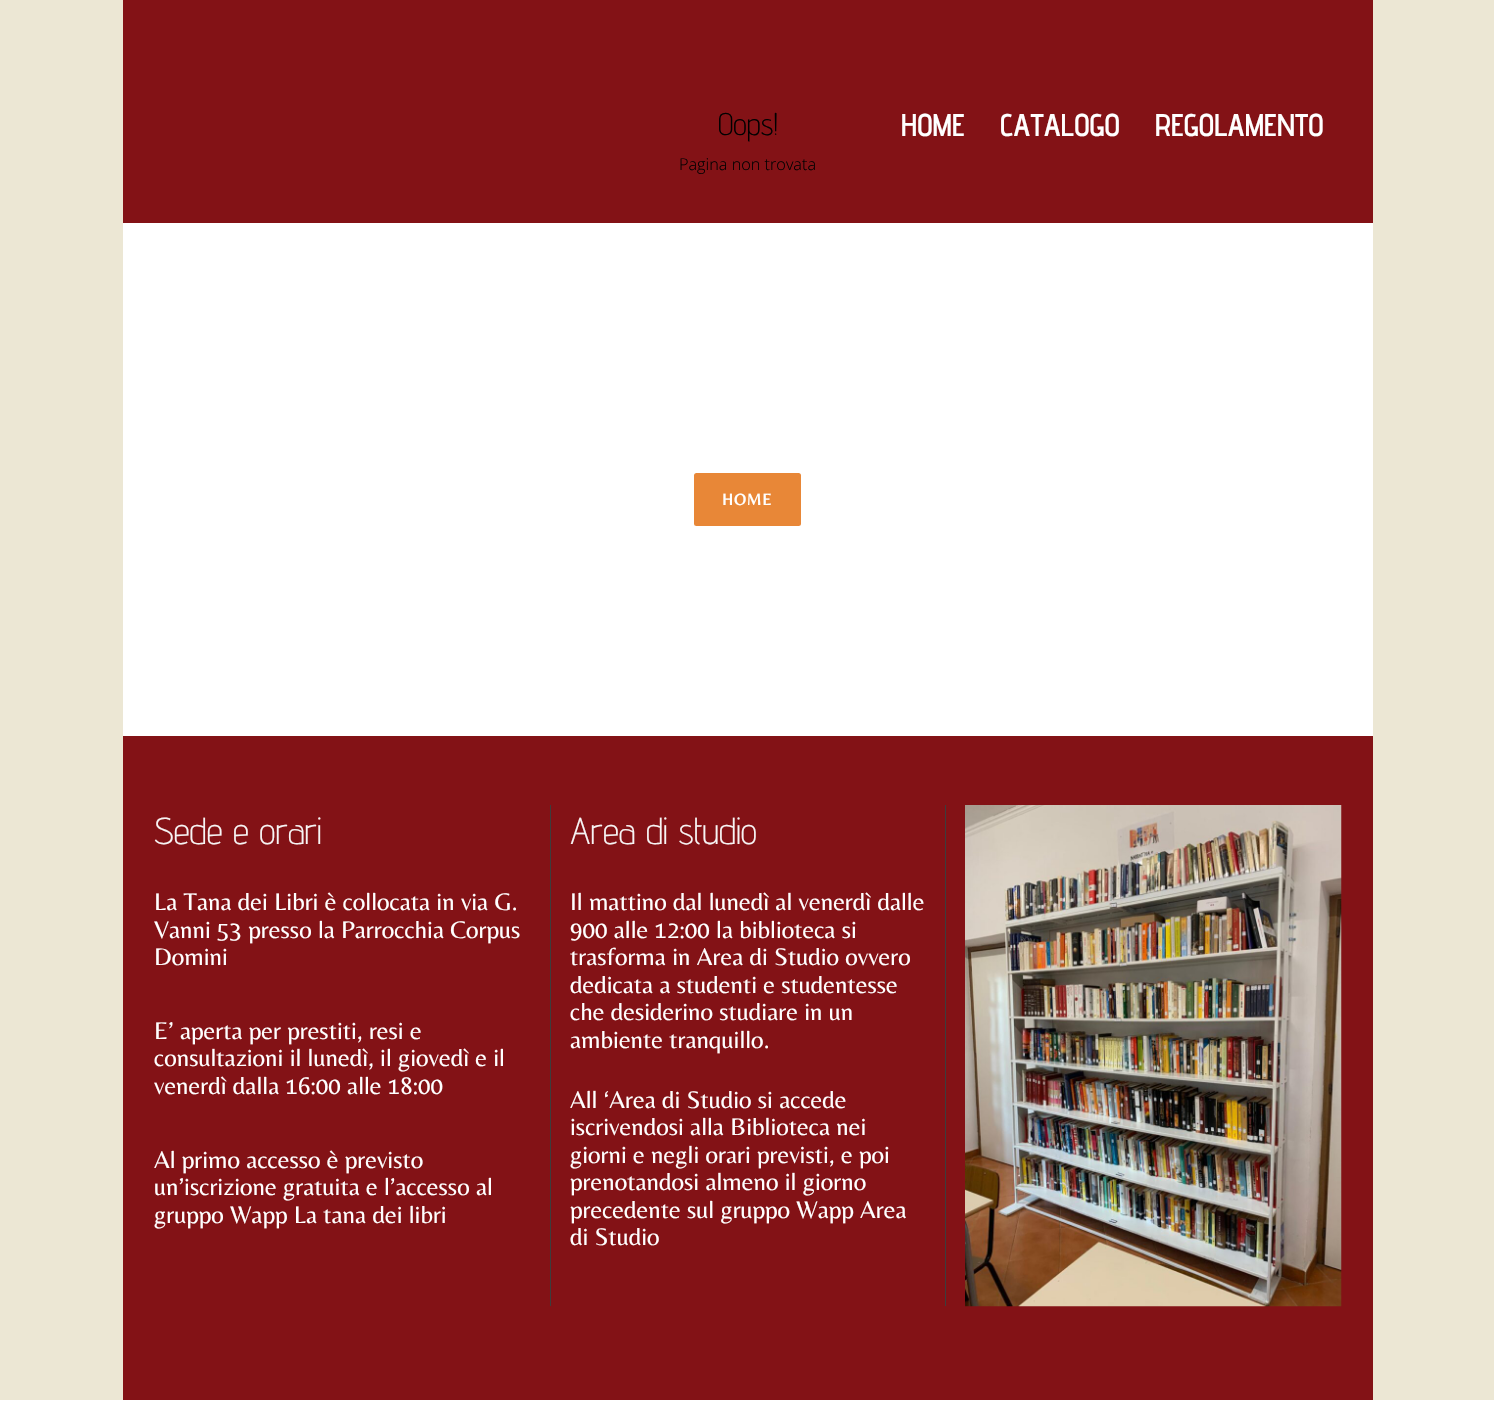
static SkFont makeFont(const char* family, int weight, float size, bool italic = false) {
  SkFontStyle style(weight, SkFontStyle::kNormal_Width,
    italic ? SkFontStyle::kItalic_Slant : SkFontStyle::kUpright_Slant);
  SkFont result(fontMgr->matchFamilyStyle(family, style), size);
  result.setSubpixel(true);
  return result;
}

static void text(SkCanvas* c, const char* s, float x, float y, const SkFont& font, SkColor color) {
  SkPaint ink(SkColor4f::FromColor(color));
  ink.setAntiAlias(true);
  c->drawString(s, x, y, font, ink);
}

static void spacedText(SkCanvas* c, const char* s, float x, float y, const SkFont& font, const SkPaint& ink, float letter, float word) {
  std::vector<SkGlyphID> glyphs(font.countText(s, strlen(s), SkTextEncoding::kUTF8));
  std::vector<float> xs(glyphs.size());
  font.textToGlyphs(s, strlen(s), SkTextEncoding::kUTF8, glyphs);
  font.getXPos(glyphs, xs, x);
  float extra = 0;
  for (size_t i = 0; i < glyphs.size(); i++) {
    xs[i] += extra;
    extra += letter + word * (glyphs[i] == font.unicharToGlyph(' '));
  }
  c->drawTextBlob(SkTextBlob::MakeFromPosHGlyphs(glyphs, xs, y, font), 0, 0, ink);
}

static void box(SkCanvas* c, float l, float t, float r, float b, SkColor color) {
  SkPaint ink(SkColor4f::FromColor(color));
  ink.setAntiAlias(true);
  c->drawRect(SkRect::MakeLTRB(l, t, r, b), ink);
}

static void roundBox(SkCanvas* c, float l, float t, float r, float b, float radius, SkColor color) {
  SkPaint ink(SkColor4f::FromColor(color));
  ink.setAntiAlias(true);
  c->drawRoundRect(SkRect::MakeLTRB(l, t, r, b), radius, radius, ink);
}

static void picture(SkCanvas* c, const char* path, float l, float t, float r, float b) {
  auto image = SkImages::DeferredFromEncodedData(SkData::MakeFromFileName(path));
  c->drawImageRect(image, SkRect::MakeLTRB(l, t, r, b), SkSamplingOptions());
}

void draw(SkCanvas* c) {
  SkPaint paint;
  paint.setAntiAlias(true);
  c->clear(0xffffffff);
  box(c, 0, 0, 1494, 1400, 0xffece7d4);
  box(c, 123, 223, 1373, 736, 0xffffffff);
  box(c, 123, 0, 1373, 223, 0xff831216);
  SkFont face1 = makeFont("Advent Pro", 300, 31.25f);
  text(c, "Oops!", 718, 135, face1, 0xff000000);
  SkFont face2 = makeFont("Open Sans", 300, 16.25f);
  text(c, "Pagina non trovata", 679, 170, face2, 0xff000000);
  roundBox(c, 694, 473, 801, 526, 2.5f, 0xffe88737);
  SkFont face3 = makeFont("Belleza", 700, 16.25f);
  paint.setColor(0xffffffff);
  spacedText(c, "HOME", 722, 505, face3, paint, 1, 0);
  SkFont face4 = makeFont("Advent Pro", 600, 31.25f);
  text(c, "HOME", 901, 136, face4, 0xffffffff);
  text(c, "CATALOGO", 1000, 136, face4, 0xffffffff);
  text(c, "REGOLAMENTO", 1155, 136, face4, 0xffffffff);
  box(c, 123, 736, 1373, 1400, 0xff831216);
  SkFont face5 = makeFont("Advent Pro", 300, 37.5f);
  text(c, "Sede e orari", 154, 844, face5, 0xfff7f4f4);
  SkFont face6 = makeFont("Belleza", 400, 25);
  text(c, "La Tana dei Libri è collocata in via G.", 154, 910, face6, 0xffffffff);
  text(c, "Vanni 53 presso la Parrocchia Corpus", 154, 938, face6, 0xffffffff);
  text(c, "Domini", 154, 965, face6, 0xffffffff);
  text(c, "E’ aperta per prestiti, resi e", 154, 1039, face6, 0xffffffff);
  text(c, "consultazioni il lunedì, il giovedì e il", 154, 1066, face6, 0xffffffff);
  text(c, "venerdì dalla 16:00 alle 18:00", 154, 1094, face6, 0xffffffff);
  text(c, "Al primo accesso è previsto", 154, 1168, face6, 0xffffffff);
  text(c, "un’iscrizione gratuita e l’accesso al", 154, 1195, face6, 0xffffffff);
  text(c, "gruppo Wapp La tana dei libri", 154, 1223, face6, 0xffffffff);
  box(c, 550, 805, 551, 1306, 0xff3d3d3d);
  text(c, "Area di studio", 570, 844, face5, 0xfff7f4f4);
  text(c, "Il mattino dal lunedì al venerdì dalle", 570, 910, face6, 0xffffffff);
  text(c, "900 alle 12:00 la biblioteca si", 570, 938, face6, 0xffffffff);
  text(c, "trasforma in Area di Studio ovvero", 570, 965, face6, 0xffffffff);
  text(c, "dedicata a studenti e studentesse", 570, 993, face6, 0xffffffff);
  text(c, "che desiderino studiare in un", 570, 1020, face6, 0xffffffff);
  text(c, "ambiente tranquillo.", 570, 1048, face6, 0xffffffff);
  text(c, "All ‘Area di Studio si accede", 570, 1108, face6, 0xffffffff);
  text(c, "iscrivendosi alla Biblioteca nei", 570, 1135, face6, 0xffffffff);
  text(c, "giorni e negli orari previsti, e poi", 570, 1163, face6, 0xffffffff);
  text(c, "prenotandosi almeno il giorno", 570, 1190, face6, 0xffffffff);
  text(c, "precedente sul gruppo Wapp Area", 570, 1218, face6, 0xffffffff);
  text(c, "di Studio", 570, 1245, face6, 0xffffffff);
  box(c, 945, 805, 946, 1306, 0xff3d3d3d);
  picture(c, "img_01.png", 965, 805, 1342, 1307);
}
